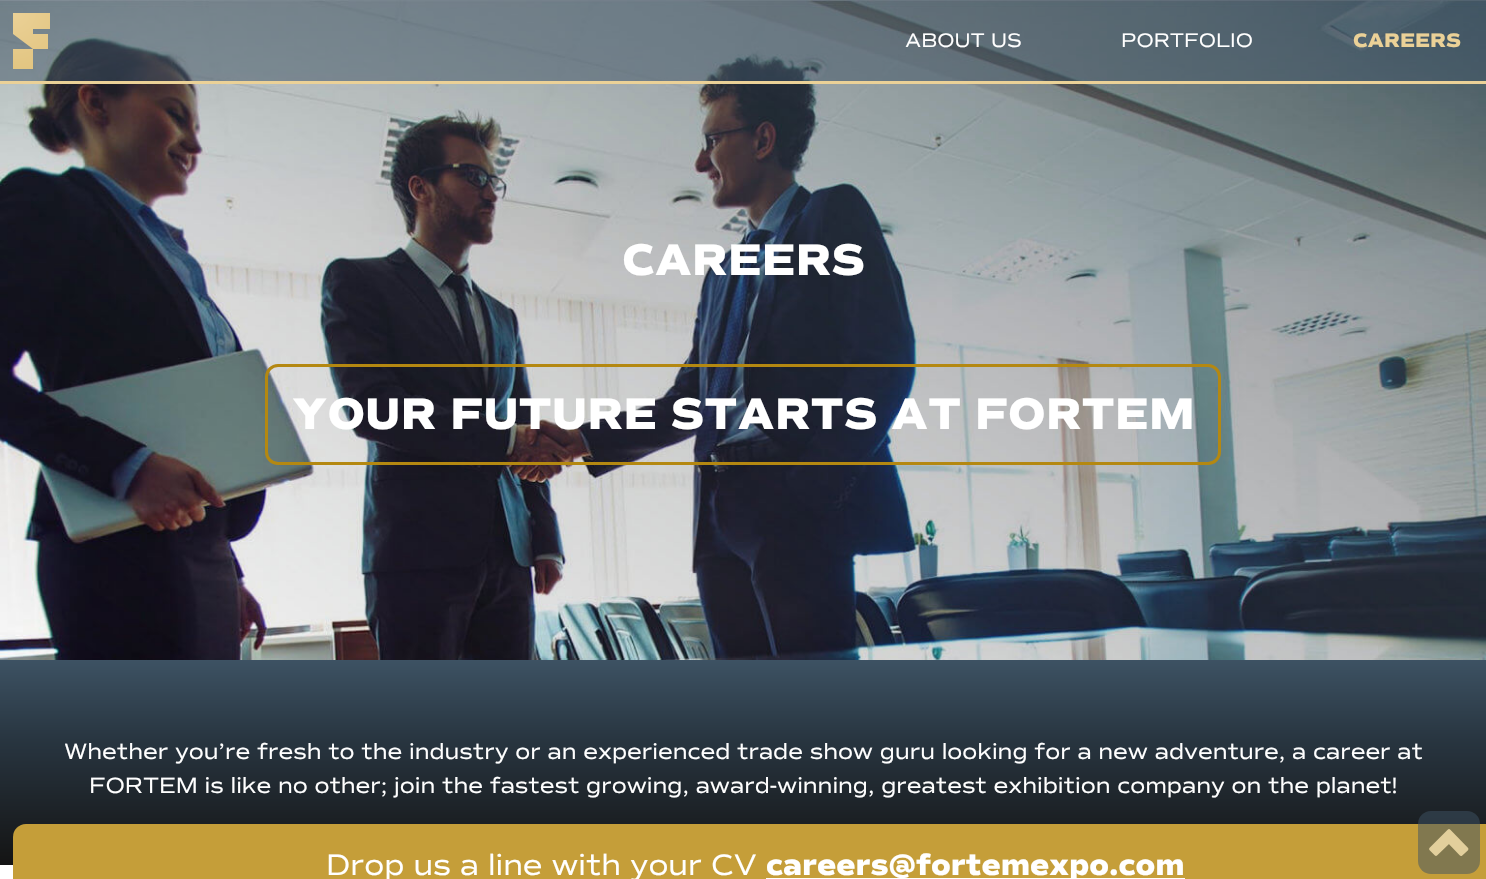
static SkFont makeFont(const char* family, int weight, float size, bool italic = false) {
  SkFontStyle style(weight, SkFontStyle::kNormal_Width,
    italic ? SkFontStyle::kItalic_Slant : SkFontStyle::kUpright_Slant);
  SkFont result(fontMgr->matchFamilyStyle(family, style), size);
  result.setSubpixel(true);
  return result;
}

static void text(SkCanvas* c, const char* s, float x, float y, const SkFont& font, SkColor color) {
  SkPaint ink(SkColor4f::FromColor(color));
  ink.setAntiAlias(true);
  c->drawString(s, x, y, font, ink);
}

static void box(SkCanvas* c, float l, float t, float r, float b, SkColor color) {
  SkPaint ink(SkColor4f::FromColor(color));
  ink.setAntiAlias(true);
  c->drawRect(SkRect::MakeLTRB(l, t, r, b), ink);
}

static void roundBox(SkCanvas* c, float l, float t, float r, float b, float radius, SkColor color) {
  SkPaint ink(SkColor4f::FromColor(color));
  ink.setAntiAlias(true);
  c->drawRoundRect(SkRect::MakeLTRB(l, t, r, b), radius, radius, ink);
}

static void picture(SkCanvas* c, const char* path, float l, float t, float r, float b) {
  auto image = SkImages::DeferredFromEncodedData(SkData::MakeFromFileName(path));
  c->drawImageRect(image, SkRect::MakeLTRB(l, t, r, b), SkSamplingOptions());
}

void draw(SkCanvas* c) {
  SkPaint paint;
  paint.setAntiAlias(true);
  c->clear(0xffffffff);
  picture(c, "img_01.png", 0, 0, 1486, 660);
  box(c, 0, 0, 1486, 81, 0x803d5263);
  box(c, 0, 81, 1486, 84, 0xffebd197);
  c->save();
  c->clipRect(SkRect::MakeLTRB(13, 13, 50, 69));
  {
    const SkColor colors[] = {0xffebd197, 0xffb48811};
    const float stops[] = {0, 1};
    paint.setShader(SkGradientShader::MakeRadial({13, 11}, 369, colors, stops, 2, SkTileMode::kClamp));
    paint.setAlpha(255);
  }
  c->drawPath(SkPathBuilder().moveTo(50, 29).lineTo(50, 12).lineTo(13, 12).lineTo(13, 34).lineTo(33, 49).lineTo(13, 49).lineTo(13, 69).lineTo(33, 69).lineTo(33, 49).lineTo(48, 49).lineTo(48, 34).lineTo(33, 34).lineTo(33, 29).close().detach(), paint);
  c->restore();
  SkFont face1 = makeFont("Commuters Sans", 400, 20);
  text(c, "ABOUT US", 905, 47, face1, 0xffffffff);
  text(c, "PORTFOLIO", 1121, 47, face1, 0xffffffff);
  SkFont face2 = makeFont("Commuters Sans", 800, 20);
  text(c, "CAREERS", 1353, 47, face2, 0xffebd197);
  SkFont face3 = makeFont("Commuters Sans", 800, 45);
  text(c, "CAREERS", 622, 275, face3, 0xffffffff);
  paint.setStyle(SkPaint::kStroke_Style);
  paint.setStrokeWidth(3);
  paint.setShader(nullptr);
  paint.setColor(0xffb48811);
  c->drawRoundRect(SkRect::MakeLTRB(266.5f, 365.5f, 1219.5f, 463.5f), 11.5f, 11.5f, paint);
  text(c, "YOUR FUTURE STARTS AT FORTEM", 292, 429, face3, 0xffffffff);
  paint.setStyle(SkPaint::kFill_Style);
  {
    const SkColor colors[] = {0xff141414, 0xff283540, 0xff3d5263};
    const float stops[] = {0, 0.61f, 1};
    const SkPoint ends[] = {{743, 865}, {743, 660}};
    paint.setShader(SkGradientShader::MakeLinear(ends, colors, stops, 3, SkTileMode::kClamp));
    paint.setAlpha(255);
  }
  c->drawRect(SkRect::MakeLTRB(0, 660, 1486, 865), paint);
  SkFont face4 = makeFont("Commuters Sans", 400, 22.5f);
  text(c, "Whether you’re fresh to the industry or an experienced trade show guru looking for a new adventure, a career at", 64, 759, face4, 0xffffffff);
  text(c, "FORTEM is like no other; join the fastest growing, award-winning, greatest exhibition company on the planet!", 89, 793, face4, 0xffffffff);
  roundBox(c, 13, 824, 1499, 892, 13, 0xffc59e39);
  SkFont face5 = makeFont("Commuters Sans", 400, 30);
  text(c, "Drop us a line with your CV", 326, 875, face5, 0xffffffff);
  box(c, 766, 878, 1185, 879, 0xffffffff);
  SkFont face6 = makeFont("Commuters Sans", 800, 30);
  text(c, "careers@fortemexpo.com", 766, 875, face6, 0xffffffff);
  roundBox(c, 1418, 811, 1480, 874, 13, 0x803d5263);
  paint.setShader(nullptr);
  paint.setColor(0xffe2cf9c);
  c->drawPath(SkPathBuilder().moveTo(1466.5f, 849).lineTo(1449, 831).lineTo(1431, 849).lineTo(1436, 854).lineTo(1449, 841.5f).lineTo(1461, 854).close().detach(), paint);
  paint.setStyle(SkPaint::kStroke_Style);
  paint.setStrokeWidth(3.8f);
  paint.setStrokeJoin(SkPaint::kRound_Join);
  c->drawPath(SkPathBuilder().moveTo(1466.5f, 849).lineTo(1449, 831).lineTo(1431, 849).lineTo(1436, 854).lineTo(1449, 841.5f).lineTo(1461, 854).close().detach(), paint);
}
